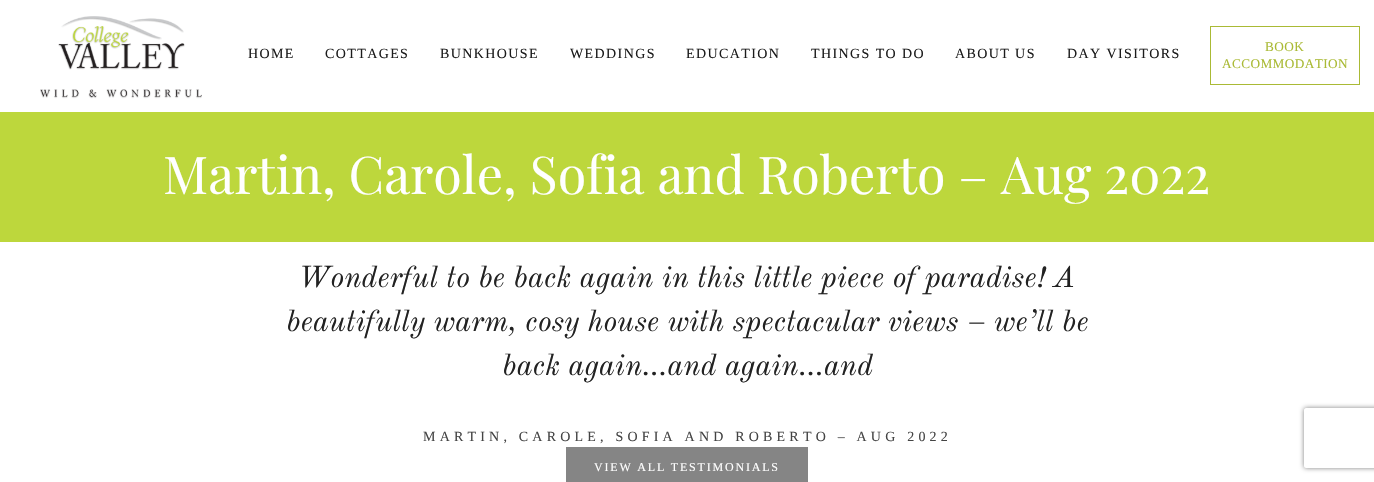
static SkFont makeFont(const char* family, int weight, float size, bool italic = false) {
  SkFontStyle style(weight, SkFontStyle::kNormal_Width,
    italic ? SkFontStyle::kItalic_Slant : SkFontStyle::kUpright_Slant);
  SkFont result(fontMgr->matchFamilyStyle(family, style), size);
  result.setSubpixel(true);
  return result;
}

static void text(SkCanvas* c, const char* s, float x, float y, const SkFont& font, SkColor color) {
  SkPaint ink(SkColor4f::FromColor(color));
  ink.setAntiAlias(true);
  c->drawString(s, x, y, font, ink);
}

static void spacedText(SkCanvas* c, const char* s, float x, float y, const SkFont& font, const SkPaint& ink, float letter, float word) {
  std::vector<SkGlyphID> glyphs(font.countText(s, strlen(s), SkTextEncoding::kUTF8));
  std::vector<float> xs(glyphs.size());
  font.textToGlyphs(s, strlen(s), SkTextEncoding::kUTF8, glyphs);
  font.getXPos(glyphs, xs, x);
  float extra = 0;
  for (size_t i = 0; i < glyphs.size(); i++) {
    xs[i] += extra;
    extra += letter + word * (glyphs[i] == font.unicharToGlyph(' '));
  }
  c->drawTextBlob(SkTextBlob::MakeFromPosHGlyphs(glyphs, xs, y, font), 0, 0, ink);
}

static void box(SkCanvas* c, float l, float t, float r, float b, SkColor color) {
  SkPaint ink(SkColor4f::FromColor(color));
  ink.setAntiAlias(true);
  c->drawRect(SkRect::MakeLTRB(l, t, r, b), ink);
}

static void picture(SkCanvas* c, const char* path, float l, float t, float r, float b) {
  auto image = SkImages::DeferredFromEncodedData(SkData::MakeFromFileName(path));
  c->drawImageRect(image, SkRect::MakeLTRB(l, t, r, b), SkSamplingOptions());
}

void draw(SkCanvas* c) {
  SkPaint paint;
  paint.setAntiAlias(true);
  c->clear(0xffffffff);
  picture(c, "img_01.png", 40, 16, 202, 99);
  SkFont face1 = makeFont("Liberation Serif", 400, 14);
  paint.setColor(0xff1c1c1c);
  spacedText(c, "HOME", 248, 58, face1, paint, 1.4f, 0);
  spacedText(c, "COTTAGES", 325, 58, face1, paint, 1.4f, 0);
  spacedText(c, "BUNKHOUSE", 440, 58, face1, paint, 1.4f, 0);
  spacedText(c, "WEDDINGS", 570, 58, face1, paint, 1.4f, 0);
  spacedText(c, "EDUCATION", 686, 58, face1, paint, 1.4f, 0);
  spacedText(c, "THINGS TO DO", 811, 58, face1, paint, 1.4f, 0);
  spacedText(c, "ABOUT US", 955, 58, face1, paint, 1.4f, 0);
  spacedText(c, "DAY VISITORS", 1067, 58, face1, paint, 1.4f, 0);
  paint.setStyle(SkPaint::kStroke_Style);
  paint.setStrokeWidth(1);
  paint.setColor(0xffaaba35);
  c->drawRect(SkRect::MakeLTRB(1210.5f, 26.5f, 1359.5f, 84.5f), paint);
  SkFont face2 = makeFont("Liberation Serif", 400, 13.25f);
  paint.setStyle(SkPaint::kFill_Style);
  spacedText(c, "BOOK", 1265, 51, face2, paint, 0.4f, 0);
  spacedText(c, "ACCOMMODATION", 1222, 68, face2, paint, 0.4f, 0);
  box(c, 0, 112, 1374, 242, 0xffbdd73c);
  SkFont face3 = makeFont("Playfair Display", 400, 52);
  text(c, "Martin, Carole, Sofia and Roberto – Aug 2022", 163, 194, face3, 0xffffffff);
  SkFont face4 = makeFont("Old Standard TT", 400, 30, true);
  text(c, "Wonderful to be back again in this little piece of paradise! A", 298, 287, face4, 0xff222222);
  text(c, "beautifully warm, cosy house with spectacular views – we’ll be", 286, 331, face4, 0xff222222);
  text(c, "back again…and again…and", 502, 375, face4, 0xff222222);
  paint.setColor(0xff444444);
  spacedText(c, "MARTIN, CAROLE, SOFIA AND ROBERTO – AUG 2022", 423, 441, face1, paint, 4.2f, 0);
  box(c, 566, 447, 808, 482, 0xff858585);
  SkFont face5 = makeFont("Liberation Serif", 400, 12);
  paint.setColor(0xffffffff);
  spacedText(c, "VIEW ALL TESTIMONIALS", 594, 471, face5, paint, 1.8f, 0);
  c->save();
  c->clipPath(SkPathBuilder(SkPathFillType::kEvenOdd).moveTo(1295, 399).lineTo(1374, 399).lineTo(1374, 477).lineTo(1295, 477).close().moveTo(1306, 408).lineTo(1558, 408).cubicTo(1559, 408, 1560, 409, 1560, 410).lineTo(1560, 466).cubicTo(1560, 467, 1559, 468, 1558, 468).lineTo(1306, 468).cubicTo(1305, 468, 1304, 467, 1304, 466).lineTo(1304, 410).cubicTo(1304, 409, 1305, 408, 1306, 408).close().detach(), true);
  paint.setColor(0xff808080);
  paint.setMaskFilter(SkMaskFilter::MakeBlur(kNormal_SkBlurStyle, 2.5f));
  c->drawRoundRect(SkRect::MakeLTRB(1304, 408, 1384, 468), 2, 2, paint);
  paint.setMaskFilter(nullptr);
  c->restore();
}
